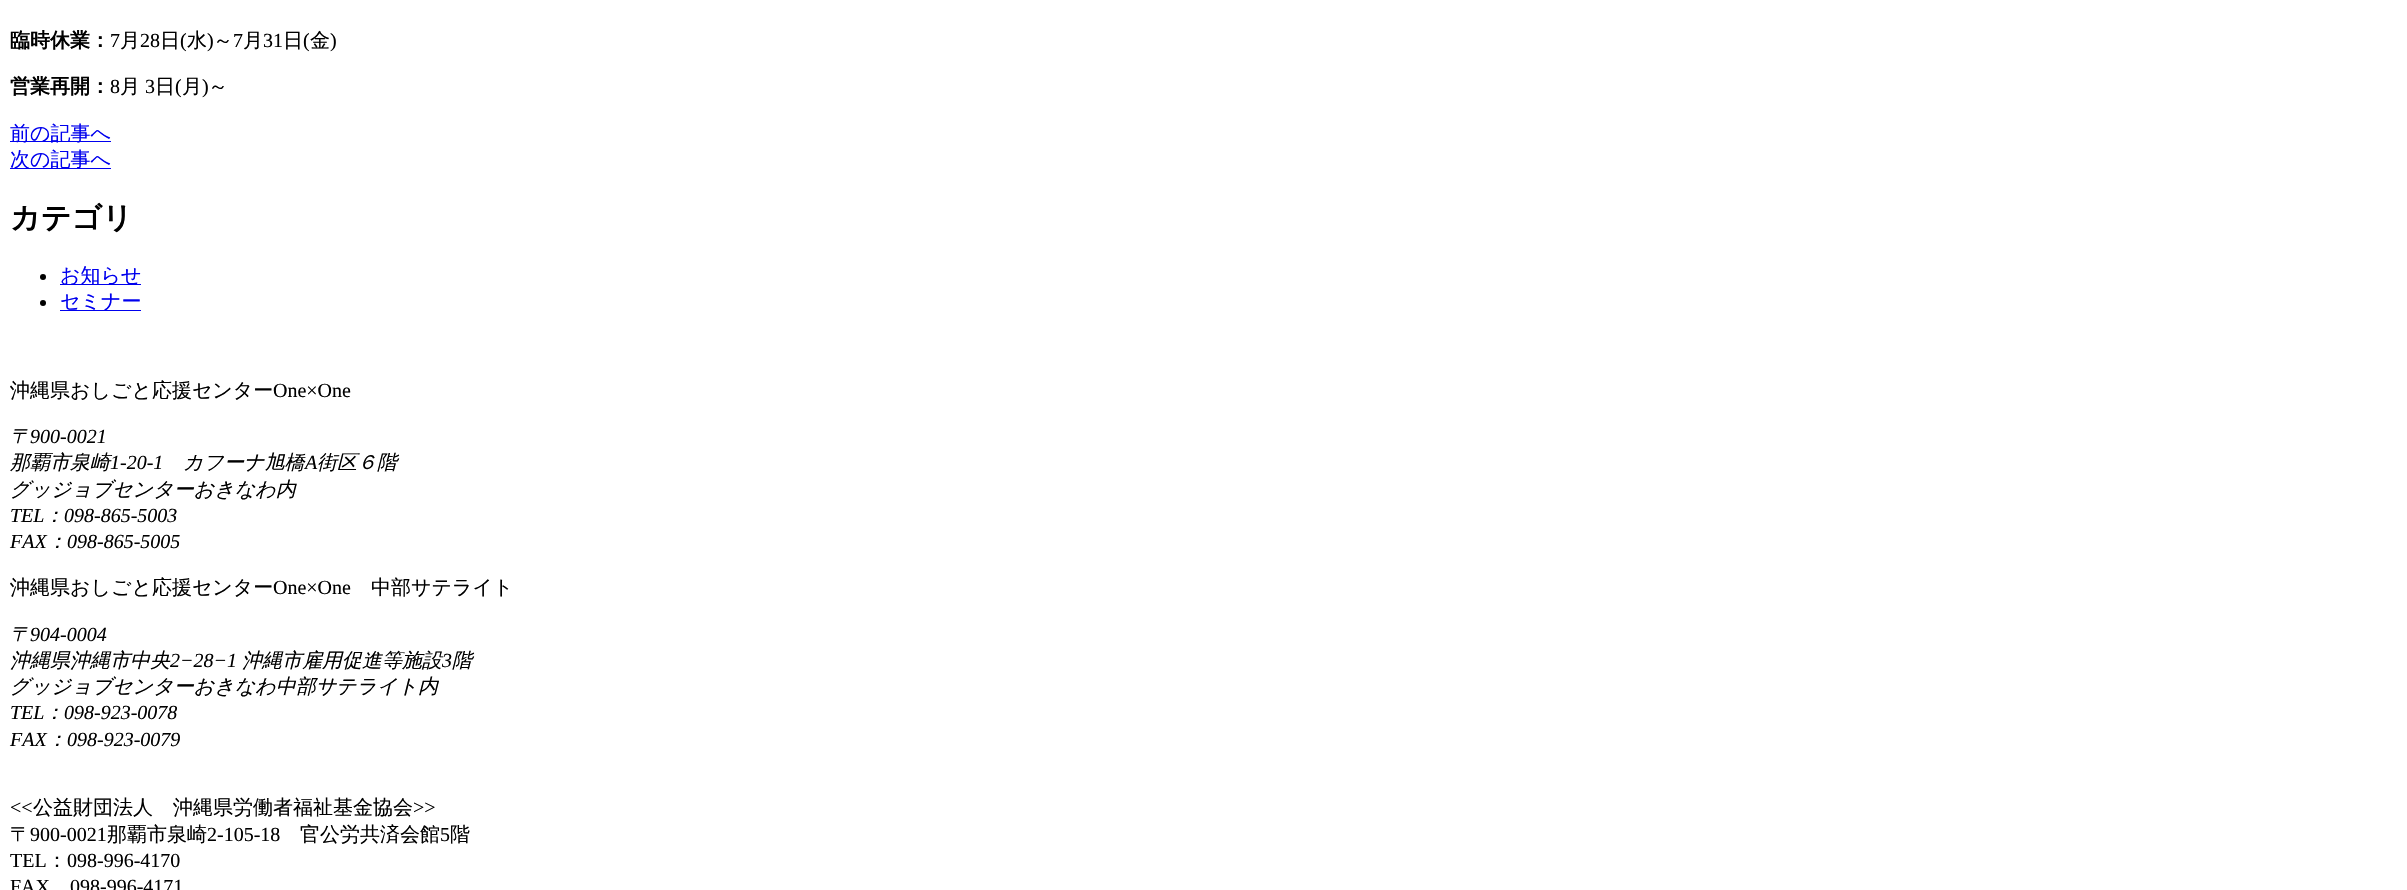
static SkFont makeFont(const char* family, int weight, float size, bool italic = false) {
  SkFontStyle style(weight, SkFontStyle::kNormal_Width,
    italic ? SkFontStyle::kItalic_Slant : SkFontStyle::kUpright_Slant);
  SkFont result(fontMgr->matchFamilyStyle(family, style), size);
  result.setSubpixel(true);
  return result;
}

static void text(SkCanvas* c, const char* s, float x, float y, const SkFont& font, SkColor color) {
  SkPaint ink(SkColor4f::FromColor(color));
  ink.setAntiAlias(true);
  c->drawString(s, x, y, font, ink);
}

static void box(SkCanvas* c, float l, float t, float r, float b, SkColor color) {
  SkPaint ink(SkColor4f::FromColor(color));
  ink.setAntiAlias(true);
  c->drawRect(SkRect::MakeLTRB(l, t, r, b), ink);
}

void draw(SkCanvas* c) {
  SkPaint paint;
  paint.setAntiAlias(true);
  c->clear(0xffffffff);
  SkFont face1 = makeFont("WenQuanYi Zen Hei", 700, 20);
  text(c, "臨時休業：", 10, 47, face1, 0xff000000);
  SkFont face2 = makeFont("Liberation Serif", 400, 20);
  text(c, "7", 110, 47, face2, 0xff000000);
  SkFont face3 = makeFont("WenQuanYi Zen Hei", 500, 20);
  text(c, "月", 120, 47, face3, 0xff000000);
  text(c, "28", 140, 47, face2, 0xff000000);
  text(c, "日", 160, 47, face3, 0xff000000);
  text(c, "(", 180, 47, face2, 0xff000000);
  text(c, "水", 187, 47, face3, 0xff000000);
  text(c, ")", 207, 47, face2, 0xff000000);
  text(c, "～", 213, 47, face3, 0xff000000);
  text(c, "7", 233, 47, face2, 0xff000000);
  text(c, "月", 243, 47, face3, 0xff000000);
  text(c, "31", 263, 47, face2, 0xff000000);
  text(c, "日", 283, 47, face3, 0xff000000);
  text(c, "(", 303, 47, face2, 0xff000000);
  text(c, "金", 310, 47, face3, 0xff000000);
  text(c, ")", 330, 47, face2, 0xff000000);
  text(c, "営業再開：", 10, 93, face1, 0xff000000);
  text(c, "8", 110, 93, face2, 0xff000000);
  text(c, "月", 120, 93, face3, 0xff000000);
  text(c, "3", 145, 93, face2, 0xff000000);
  text(c, "日", 155, 93, face3, 0xff000000);
  text(c, "(", 175, 93, face2, 0xff000000);
  text(c, "月", 182, 93, face3, 0xff000000);
  text(c, ")", 202, 93, face2, 0xff000000);
  text(c, "～", 208, 93, face3, 0xff000000);
  box(c, 10, 141, 111, 142, 0xff0000ee);
  text(c, "前の記事へ", 10, 140, face3, 0xff0000ee);
  box(c, 10, 168, 111, 169, 0xff0000ee);
  text(c, "次の記事へ", 10, 166, face3, 0xff0000ee);
  SkFont face4 = makeFont("WenQuanYi Zen Hei", 700, 30);
  text(c, "カテゴリ", 10, 228, face4, 0xff000000);
  paint.setColor(0xff000000);
  c->drawCircle(43, 277, 3, paint);
  box(c, 60, 284, 141, 285, 0xff0000ee);
  text(c, "お知らせ", 60, 282, face3, 0xff0000ee);
  c->drawCircle(43, 303, 3, paint);
  box(c, 60, 310, 141, 311, 0xff0000ee);
  text(c, "セミナー", 60, 308, face3, 0xff0000ee);
  text(c, "沖縄県おしごと応援センター", 10, 397, face3, 0xff000000);
  text(c, "One×One", 273, 397, face2, 0xff000000);
  SkFont face5 = makeFont("WenQuanYi Zen Hei", 500, 20, true);
  text(c, "〒", 10, 443, face5, 0xff000000);
  SkFont face6 = makeFont("Liberation Serif", 400, 20, true);
  text(c, "900-0021", 30, 443, face6, 0xff000000);
  text(c, "那覇市泉崎", 10, 469, face5, 0xff000000);
  text(c, "1-20-1", 110, 469, face6, 0xff000000);
  text(c, "カフーナ旭橋", 183, 469, face5, 0xff000000);
  text(c, "A", 305, 469, face6, 0xff000000);
  text(c, "街区６階", 317, 469, face5, 0xff000000);
  text(c, "グッジョブセンターおきなわ内", 10, 496, face5, 0xff000000);
  text(c, "TEL", 10, 522, face6, 0xff000000);
  text(c, "：", 44, 522, face5, 0xff000000);
  text(c, "098-865-5003", 64, 522, face6, 0xff000000);
  text(c, "FAX", 10, 548, face6, 0xff000000);
  text(c, "：", 47, 548, face5, 0xff000000);
  text(c, "098-865-5005", 67, 548, face6, 0xff000000);
  text(c, "沖縄県おしごと応援センター", 10, 594, face3, 0xff000000);
  text(c, "One×One", 273, 594, face2, 0xff000000);
  text(c, "中部サテライト", 371, 594, face3, 0xff000000);
  text(c, "〒", 10, 641, face5, 0xff000000);
  text(c, "904-0004", 30, 641, face6, 0xff000000);
  text(c, "沖縄県沖縄市中央", 10, 667, face5, 0xff000000);
  text(c, "2−28−1", 170, 667, face6, 0xff000000);
  text(c, "沖縄市雇用促進等施設", 242, 667, face5, 0xff000000);
  text(c, "3", 442, 667, face6, 0xff000000);
  text(c, "階", 452, 667, face5, 0xff000000);
  text(c, "グッジョブセンターおきなわ中部サテライト内", 10, 693, face5, 0xff000000);
  text(c, "TEL", 10, 719, face6, 0xff000000);
  text(c, "：", 44, 719, face5, 0xff000000);
  text(c, "098-923-0078", 64, 719, face6, 0xff000000);
  text(c, "FAX", 10, 746, face6, 0xff000000);
  text(c, "：", 47, 746, face5, 0xff000000);
  text(c, "098-923-0079", 67, 746, face6, 0xff000000);
  text(c, "<<", 10, 814, face2, 0xff000000);
  text(c, "公益財団法人　沖縄県労働者福祉基金協会", 33, 814, face3, 0xff000000);
  text(c, ">>", 413, 814, face2, 0xff000000);
  text(c, "〒", 10, 841, face3, 0xff000000);
  text(c, "900-0021", 30, 841, face2, 0xff000000);
  text(c, "那覇市泉崎", 107, 841, face3, 0xff000000);
  text(c, "2-105-18", 207, 841, face2, 0xff000000);
  text(c, "官公労共済会館", 300, 841, face3, 0xff000000);
  text(c, "5", 440, 841, face2, 0xff000000);
  text(c, "階", 450, 841, face3, 0xff000000);
  text(c, "TEL", 10, 867, face2, 0xff000000);
  text(c, "：", 47, 867, face3, 0xff000000);
  text(c, "098-996-4170", 67, 867, face2, 0xff000000);
  text(c, "FAX", 10, 893, face2, 0xff000000);
  text(c, "098-996-4171", 70, 893, face2, 0xff000000);
}
